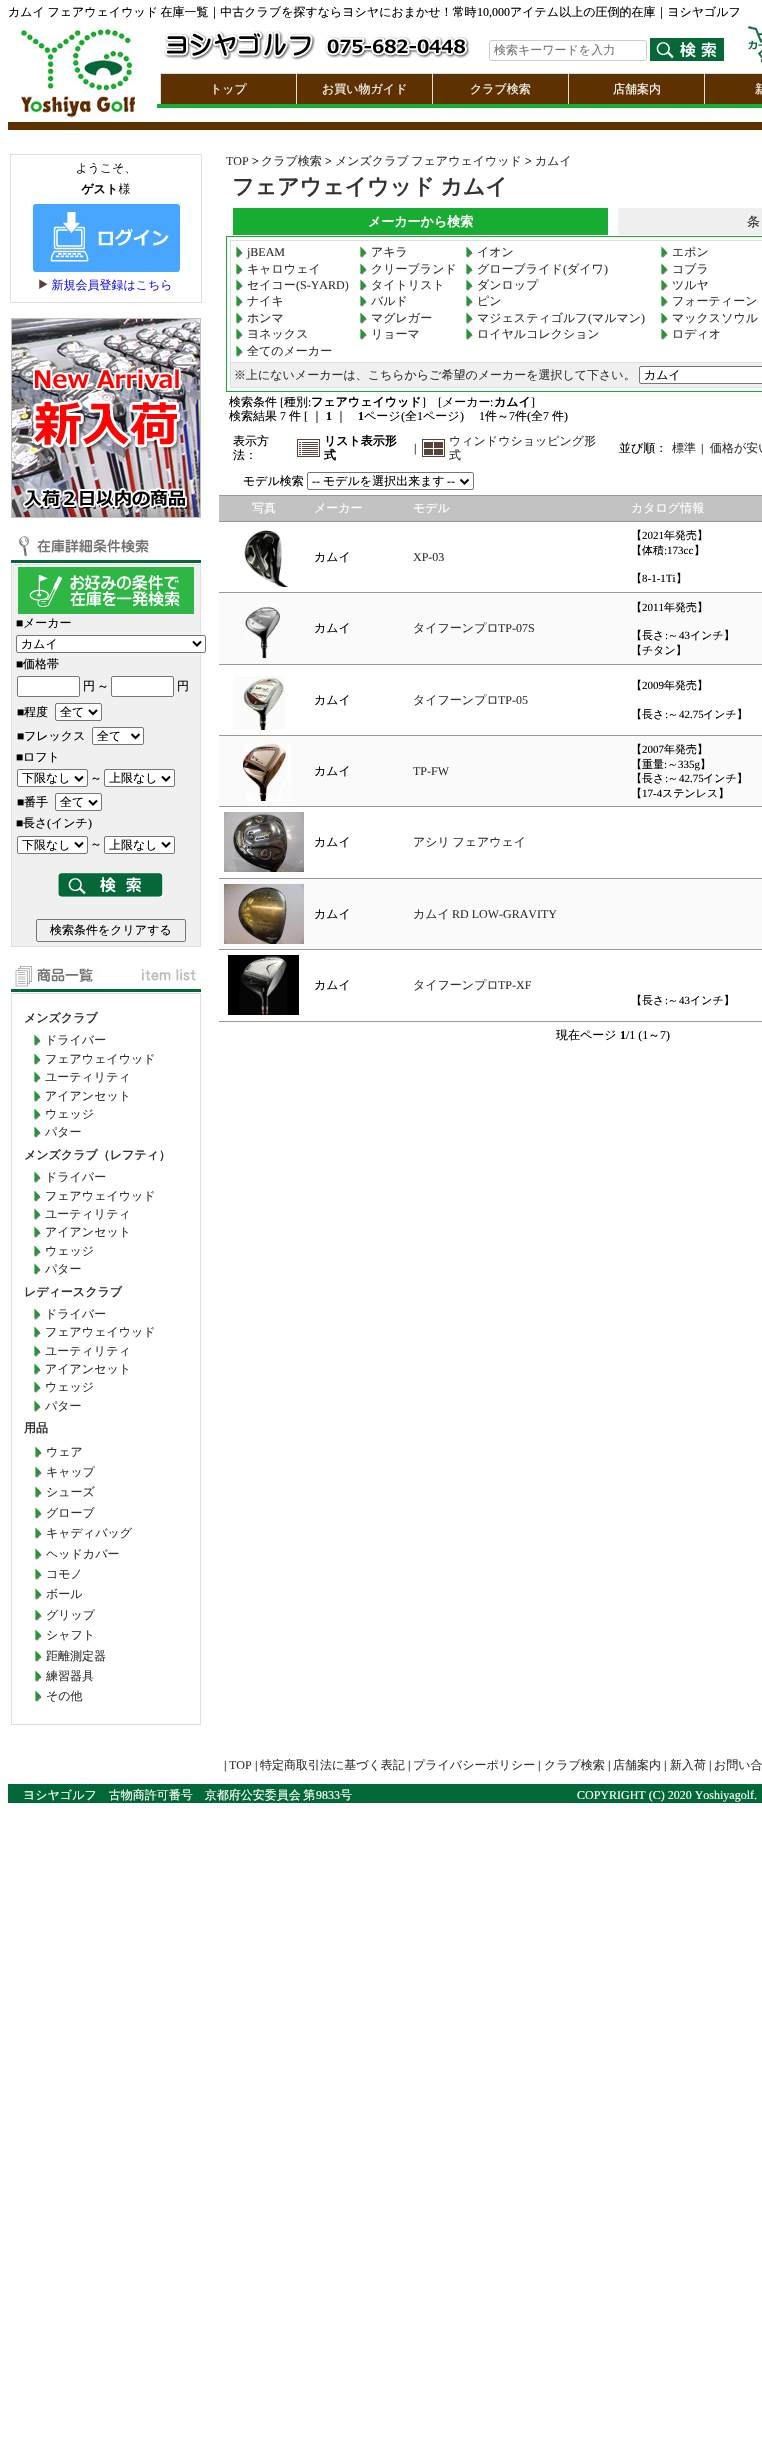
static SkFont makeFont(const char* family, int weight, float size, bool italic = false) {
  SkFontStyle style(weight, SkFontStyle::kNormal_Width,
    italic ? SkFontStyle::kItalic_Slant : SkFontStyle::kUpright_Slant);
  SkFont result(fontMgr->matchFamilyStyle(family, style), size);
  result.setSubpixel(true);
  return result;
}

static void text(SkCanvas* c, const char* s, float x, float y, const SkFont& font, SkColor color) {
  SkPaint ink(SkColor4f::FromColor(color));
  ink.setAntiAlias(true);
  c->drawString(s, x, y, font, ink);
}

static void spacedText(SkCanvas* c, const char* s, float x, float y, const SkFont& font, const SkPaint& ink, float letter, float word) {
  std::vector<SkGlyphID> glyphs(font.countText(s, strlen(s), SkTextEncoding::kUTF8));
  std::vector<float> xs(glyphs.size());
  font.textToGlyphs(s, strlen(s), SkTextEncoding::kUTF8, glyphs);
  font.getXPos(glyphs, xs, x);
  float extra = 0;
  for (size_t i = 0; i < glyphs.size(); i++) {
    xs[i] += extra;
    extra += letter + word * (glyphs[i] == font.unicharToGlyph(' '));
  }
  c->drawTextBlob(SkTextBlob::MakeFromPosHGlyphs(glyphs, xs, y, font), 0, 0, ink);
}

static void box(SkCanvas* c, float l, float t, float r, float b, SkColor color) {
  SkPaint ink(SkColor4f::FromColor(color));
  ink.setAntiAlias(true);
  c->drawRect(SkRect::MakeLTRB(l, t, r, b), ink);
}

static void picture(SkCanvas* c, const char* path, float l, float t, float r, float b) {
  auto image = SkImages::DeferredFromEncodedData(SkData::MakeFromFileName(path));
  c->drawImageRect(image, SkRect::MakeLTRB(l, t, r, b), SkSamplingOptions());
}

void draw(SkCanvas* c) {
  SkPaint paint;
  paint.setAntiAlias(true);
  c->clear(0xffffffff);
  SkFont face1 = makeFont("WenQuanYi Zen Hei", 500, 12);
  paint.setColor(0xff000000);
  spacedText(c, "カムイ フェアウェイウッド 在庫一覧｜中古クラブを探すならヨシヤにおまかせ！常時", 8, 16, face1, paint, 0, -1);
  SkFont face2 = makeFont("Liberation Serif", 400, 12);
  text(c, "10,000", 477, 16, face2, 0xff000000);
  text(c, "アイテム以上の圧倒的在庫｜ヨシヤゴルフ", 510, 16, face1, 0xff000000);
  picture(c, "img_01.png", 8, 100, 762, 130);
  picture(c, "img_02.png", 8, 27, 157, 123);
  picture(c, "img_03.png", 164, 30, 470, 61);
  paint.setStyle(SkPaint::kStroke_Style);
  paint.setStrokeWidth(1);
  paint.setColor(0xffcccccc);
  c->drawRoundRect(SkRect::MakeLTRB(489.5f, 40.5f, 646.5f, 60.5f), 2.5f, 2.5f, paint);
  text(c, "検索キーワードを入力", 494, 54, face1, 0xff757575);
  picture(c, "img_04.png", 650, 38, 724, 61);
  picture(c, "img_05.png", 744, 24, 762, 64);
  box(c, 161, 74, 296, 104, 0xff5e3100);
  box(c, 160, 73, 762, 74, 0xffe0e0e0);
  box(c, 296, 73, 297, 104, 0xffe0e0e0);
  box(c, 160, 73, 161, 104, 0xffe0e0e0);
  text(c, "トップ", 210, 93, face1, 0xffffffff);
  box(c, 297, 74, 432, 104, 0xff5e3100);
  box(c, 432, 73, 433, 104, 0xffe0e0e0);
  text(c, "お買い物ガイド", 322, 93, face1, 0xffffffff);
  box(c, 433, 74, 568, 104, 0xff5e3100);
  box(c, 568, 73, 569, 104, 0xffe0e0e0);
  text(c, "クラブ検索", 470, 93, face1, 0xffffffff);
  box(c, 569, 74, 704, 104, 0xff5e3100);
  box(c, 704, 73, 705, 104, 0xffe0e0e0);
  text(c, "店舗案内", 613, 93, face1, 0xffffffff);
  box(c, 705, 74, 762, 104, 0xff5e3100);
  text(c, "新", 755, 93, face1, 0xffffffff);
  box(c, 10, 154, 202, 303, 0xffe0e0e0);
  box(c, 11, 155, 201, 302, 0xffffffff);
  picture(c, "img_06.png", 33, 162, 180, 291);
  picture(c, "img_07.png", 11, 318, 201, 518);
  picture(c, "img_08.png", 11, 536, 201, 563);
  box(c, 11, 564, 201, 947, 0xffe0e0e0);
  box(c, 12, 565, 200, 946, 0xfff0f0f0);
  picture(c, "img_09.png", 18, 567, 194, 614);
  text(c, "■", 16, 627, face2, 0xff000000);
  text(c, "メーカー", 23, 627, face1, 0xff000000);
  paint.setStyle(SkPaint::kFill_Style);
  paint.setColor(0xffffffff);
  c->drawRoundRect(SkRect::MakeLTRB(16.5f, 635.5f, 205.5f, 652.5f), 1.5f, 1.5f, paint);
  paint.setStyle(SkPaint::kStroke_Style);
  paint.setColor(0xff767676);
  c->drawRoundRect(SkRect::MakeLTRB(16.5f, 635.5f, 205.5f, 652.5f), 1.5f, 1.5f, paint);
  paint.setStrokeWidth(2);
  paint.setColor(0xff000000);
  c->drawPath(SkPathBuilder().moveTo(193, 641.5f).lineTo(197, 645.5f).lineTo(201, 641.5f).detach(), paint);
  text(c, "カムイ", 21, 648, face1, 0xff000000);
  text(c, "■", 16, 668, face2, 0xff000000);
  text(c, "価格帯", 23, 668, face1, 0xff000000);
  paint.setStyle(SkPaint::kFill_Style);
  paint.setColor(0xffffffff);
  c->drawRoundRect(SkRect::MakeLTRB(17.5f, 676.5f, 79.5f, 696.5f), 1.5f, 1.5f, paint);
  paint.setStyle(SkPaint::kStroke_Style);
  paint.setStrokeWidth(1);
  paint.setColor(0xff767676);
  c->drawRoundRect(SkRect::MakeLTRB(17.5f, 676.5f, 79.5f, 696.5f), 1.5f, 1.5f, paint);
  text(c, "円", 83, 690, face1, 0xff000000);
  text(c, "～", 97, 690, face1, 0xff000000);
  paint.setStyle(SkPaint::kFill_Style);
  paint.setColor(0xffffffff);
  c->drawRoundRect(SkRect::MakeLTRB(111.5f, 676.5f, 173.5f, 696.5f), 1.5f, 1.5f, paint);
  paint.setStyle(SkPaint::kStroke_Style);
  paint.setColor(0xff767676);
  c->drawRoundRect(SkRect::MakeLTRB(111.5f, 676.5f, 173.5f, 696.5f), 1.5f, 1.5f, paint);
  text(c, "円", 177, 690, face1, 0xff000000);
  text(c, "■", 17, 716, face2, 0xff000000);
  text(c, "程度", 24, 716, face1, 0xff000000);
  paint.setStyle(SkPaint::kFill_Style);
  paint.setColor(0xffffffff);
  c->drawRoundRect(SkRect::MakeLTRB(55.5f, 703.5f, 101.5f, 720.5f), 1.5f, 1.5f, paint);
  paint.setStyle(SkPaint::kStroke_Style);
  paint.setColor(0xff767676);
  c->drawRoundRect(SkRect::MakeLTRB(55.5f, 703.5f, 101.5f, 720.5f), 1.5f, 1.5f, paint);
  paint.setStrokeWidth(2);
  paint.setColor(0xff000000);
  c->drawPath(SkPathBuilder().moveTo(89, 710).lineTo(93, 714).lineTo(97, 710).detach(), paint);
  text(c, "全て", 60, 716, face1, 0xff000000);
  text(c, "■", 17, 740, face2, 0xff000000);
  text(c, "フレックス", 24, 740, face1, 0xff000000);
  paint.setStyle(SkPaint::kFill_Style);
  paint.setColor(0xffffffff);
  c->drawRoundRect(SkRect::MakeLTRB(92.5f, 727.5f, 143.5f, 744.5f), 1.5f, 1.5f, paint);
  paint.setStyle(SkPaint::kStroke_Style);
  paint.setStrokeWidth(1);
  paint.setColor(0xff767676);
  c->drawRoundRect(SkRect::MakeLTRB(92.5f, 727.5f, 143.5f, 744.5f), 1.5f, 1.5f, paint);
  paint.setStrokeWidth(2);
  paint.setColor(0xff000000);
  c->drawPath(SkPathBuilder().moveTo(131.5f, 734).lineTo(135.5f, 738).lineTo(139.5f, 734).detach(), paint);
  text(c, "全て", 97, 740, face1, 0xff000000);
  text(c, "■", 16, 761, face2, 0xff000000);
  text(c, "ロフト", 23, 761, face1, 0xff000000);
  paint.setStyle(SkPaint::kFill_Style);
  paint.setColor(0xffffffff);
  c->drawRoundRect(SkRect::MakeLTRB(17.5f, 769.5f, 87.5f, 786.5f), 1.5f, 1.5f, paint);
  paint.setStyle(SkPaint::kStroke_Style);
  paint.setStrokeWidth(1);
  paint.setColor(0xff767676);
  c->drawRoundRect(SkRect::MakeLTRB(17.5f, 769.5f, 87.5f, 786.5f), 1.5f, 1.5f, paint);
  paint.setStrokeWidth(2);
  paint.setColor(0xff000000);
  c->drawPath(SkPathBuilder().moveTo(75, 776.5f).lineTo(79, 780.5f).lineTo(83, 776.5f).detach(), paint);
  text(c, "下限なし", 22, 782, face1, 0xff000000);
  text(c, "～", 90, 782, face1, 0xff000000);
  paint.setStyle(SkPaint::kFill_Style);
  paint.setColor(0xffffffff);
  c->drawRoundRect(SkRect::MakeLTRB(104.5f, 769.5f, 174.5f, 786.5f), 1.5f, 1.5f, paint);
  paint.setStyle(SkPaint::kStroke_Style);
  paint.setStrokeWidth(1);
  paint.setColor(0xff767676);
  c->drawRoundRect(SkRect::MakeLTRB(104.5f, 769.5f, 174.5f, 786.5f), 1.5f, 1.5f, paint);
  paint.setStrokeWidth(2);
  paint.setColor(0xff000000);
  c->drawPath(SkPathBuilder().moveTo(162, 776.5f).lineTo(166, 780.5f).lineTo(170, 776.5f).detach(), paint);
  text(c, "上限なし", 109, 782, face1, 0xff000000);
  text(c, "■", 17, 806, face2, 0xff000000);
  text(c, "番手", 24, 806, face1, 0xff000000);
  paint.setStyle(SkPaint::kFill_Style);
  paint.setColor(0xffffffff);
  c->drawRoundRect(SkRect::MakeLTRB(55.5f, 793.5f, 101.5f, 810.5f), 1.5f, 1.5f, paint);
  paint.setStyle(SkPaint::kStroke_Style);
  paint.setStrokeWidth(1);
  paint.setColor(0xff767676);
  c->drawRoundRect(SkRect::MakeLTRB(55.5f, 793.5f, 101.5f, 810.5f), 1.5f, 1.5f, paint);
  paint.setStrokeWidth(2);
  paint.setColor(0xff000000);
  c->drawPath(SkPathBuilder().moveTo(89, 800.5f).lineTo(93, 804.5f).lineTo(97, 800.5f).detach(), paint);
  text(c, "全て", 60, 806, face1, 0xff000000);
  text(c, "■", 16, 827, face2, 0xff000000);
  text(c, "長さ", 23, 827, face1, 0xff000000);
  text(c, "(", 47, 827, face2, 0xff000000);
  text(c, "インチ", 51, 827, face1, 0xff000000);
  text(c, ")", 88, 827, face2, 0xff000000);
  paint.setStyle(SkPaint::kFill_Style);
  paint.setColor(0xffffffff);
  c->drawRoundRect(SkRect::MakeLTRB(17.5f, 836.5f, 87.5f, 853.5f), 1.5f, 1.5f, paint);
  paint.setStyle(SkPaint::kStroke_Style);
  paint.setStrokeWidth(1);
  paint.setColor(0xff767676);
  c->drawRoundRect(SkRect::MakeLTRB(17.5f, 836.5f, 87.5f, 853.5f), 1.5f, 1.5f, paint);
  paint.setStrokeWidth(2);
  paint.setColor(0xff000000);
  c->drawPath(SkPathBuilder().moveTo(75, 842.5f).lineTo(79, 846.5f).lineTo(83, 842.5f).detach(), paint);
  text(c, "下限なし", 22, 849, face1, 0xff000000);
  text(c, "～", 90, 848, face1, 0xff000000);
  paint.setStyle(SkPaint::kFill_Style);
  paint.setColor(0xffffffff);
  c->drawRoundRect(SkRect::MakeLTRB(104.5f, 836.5f, 174.5f, 853.5f), 1.5f, 1.5f, paint);
  paint.setStyle(SkPaint::kStroke_Style);
  paint.setStrokeWidth(1);
  paint.setColor(0xff767676);
  c->drawRoundRect(SkRect::MakeLTRB(104.5f, 836.5f, 174.5f, 853.5f), 1.5f, 1.5f, paint);
  paint.setStrokeWidth(2);
  paint.setColor(0xff000000);
  c->drawPath(SkPathBuilder().moveTo(162, 842.5f).lineTo(166, 846.5f).lineTo(170, 842.5f).detach(), paint);
  text(c, "上限なし", 109, 849, face1, 0xff000000);
  picture(c, "img_10.png", 58, 873, 163, 897);
  paint.setStrokeWidth(1);
  paint.setColor(0xff767676);
  c->drawRoundRect(SkRect::MakeLTRB(36.5f, 919.5f, 185.5f, 941.5f), 1.5f, 1.5f, paint);
  text(c, "検索条件をクリアする", 50, 934, face1, 0xff000000);
  picture(c, "img_11.png", 11, 963, 201, 992);
  box(c, 11, 993, 201, 1725, 0xffe0e0e0);
  box(c, 12, 994, 200, 1724, 0xffffffff);
  SkFont face3 = makeFont("WenQuanYi Zen Hei", 700, 12);
  text(c, "メンズクラブ", 24, 1022, face3, 0xff333333);
  picture(c, "img_12.png", 34, 1034, 41, 1046);
  text(c, "ドライバー", 45, 1044, face1, 0xff333333);
  picture(c, "img_12.png", 34, 1053, 41, 1065);
  text(c, "フェアウェイウッド", 45, 1063, face1, 0xff333333);
  picture(c, "img_12.png", 34, 1071, 41, 1083);
  text(c, "ユーティリティ", 45, 1081, face1, 0xff333333);
  picture(c, "img_12.png", 34, 1090, 41, 1102);
  text(c, "アイアンセット", 45, 1100, face1, 0xff333333);
  picture(c, "img_12.png", 34, 1108, 41, 1120);
  text(c, "ウェッジ", 45, 1118, face1, 0xff333333);
  picture(c, "img_12.png", 34, 1126, 41, 1138);
  text(c, "パター", 45, 1136, face1, 0xff333333);
  text(c, "メンズクラブ（レフティ）", 24, 1159, face3, 0xff333333);
  picture(c, "img_12.png", 34, 1171, 41, 1183);
  text(c, "ドライバー", 45, 1181, face1, 0xff333333);
  picture(c, "img_12.png", 34, 1190, 41, 1202);
  text(c, "フェアウェイウッド", 45, 1200, face1, 0xff333333);
  picture(c, "img_12.png", 34, 1208, 41, 1220);
  text(c, "ユーティリティ", 45, 1218, face1, 0xff333333);
  picture(c, "img_12.png", 34, 1226, 41, 1238);
  text(c, "アイアンセット", 45, 1236, face1, 0xff333333);
  picture(c, "img_12.png", 34, 1245, 41, 1257);
  text(c, "ウェッジ", 45, 1255, face1, 0xff333333);
  picture(c, "img_12.png", 34, 1263, 41, 1275);
  text(c, "パター", 45, 1273, face1, 0xff333333);
  text(c, "レディースクラブ", 24, 1296, face3, 0xff333333);
  picture(c, "img_12.png", 34, 1308, 41, 1320);
  text(c, "ドライバー", 45, 1318, face1, 0xff333333);
  picture(c, "img_12.png", 34, 1326, 41, 1338);
  text(c, "フェアウェイウッド", 45, 1336, face1, 0xff333333);
  picture(c, "img_12.png", 34, 1345, 41, 1357);
  text(c, "ユーティリティ", 45, 1355, face1, 0xff333333);
  picture(c, "img_12.png", 34, 1363, 41, 1375);
  text(c, "アイアンセット", 45, 1373, face1, 0xff333333);
  picture(c, "img_12.png", 34, 1381, 41, 1393);
  text(c, "ウェッジ", 45, 1391, face1, 0xff333333);
  picture(c, "img_12.png", 34, 1400, 41, 1412);
  text(c, "パター", 45, 1410, face1, 0xff333333);
  text(c, "用品", 24, 1432, face3, 0xff333333);
  picture(c, "img_12.png", 35, 1446, 42, 1458);
  text(c, "ウェア", 46, 1456, face1, 0xff333333);
  picture(c, "img_12.png", 35, 1466, 42, 1478);
  text(c, "キャップ", 46, 1476, face1, 0xff333333);
  picture(c, "img_12.png", 35, 1486, 42, 1498);
  text(c, "シューズ", 46, 1496, face1, 0xff333333);
  picture(c, "img_12.png", 35, 1507, 42, 1519);
  text(c, "グローブ", 46, 1517, face1, 0xff333333);
  picture(c, "img_12.png", 35, 1527, 42, 1539);
  text(c, "キャディバッグ", 46, 1537, face1, 0xff333333);
  picture(c, "img_12.png", 35, 1548, 42, 1560);
  text(c, "ヘッドカバー", 46, 1558, face1, 0xff333333);
  picture(c, "img_12.png", 35, 1568, 42, 1580);
  text(c, "コモノ", 46, 1578, face1, 0xff333333);
  picture(c, "img_12.png", 35, 1588, 42, 1600);
  text(c, "ボール", 46, 1598, face1, 0xff333333);
  picture(c, "img_12.png", 35, 1609, 42, 1621);
  text(c, "グリップ", 46, 1619, face1, 0xff333333);
  picture(c, "img_12.png", 35, 1629, 42, 1641);
  text(c, "シャフト", 46, 1639, face1, 0xff333333);
  picture(c, "img_12.png", 35, 1650, 42, 1662);
  text(c, "距離測定器", 46, 1660, face1, 0xff333333);
  picture(c, "img_12.png", 35, 1670, 42, 1682);
  text(c, "練習器具", 46, 1680, face1, 0xff333333);
  picture(c, "img_12.png", 35, 1690, 42, 1702);
  text(c, "その他", 46, 1700, face1, 0xff333333);
  text(c, "TOP", 226, 165, face2, 0xff333333);
  text(c, ">", 252, 165, face2, 0xff000000);
  text(c, "クラブ検索", 261, 165, face1, 0xff333333);
  text(c, ">", 325, 165, face2, 0xff000000);
  paint.setStyle(SkPaint::kFill_Style);
  paint.setColor(0xff333333);
  spacedText(c, "メンズクラブ フェアウェイウッド", 335, 165, face1, paint, 0, -1);
  text(c, ">", 525, 165, face2, 0xff000000);
  text(c, "カムイ", 535, 165, face1, 0xff333333);
  SkFont face4 = makeFont("WenQuanYi Zen Hei", 700, 22);
  spacedText(c, "フェアウェイウッド カムイ", 232, 194, face4, paint, 0, -1);
  box(c, 233, 208, 608, 235, 0xff19ac33);
  SkFont face5 = makeFont("WenQuanYi Zen Hei", 700, 13);
  text(c, "メーカーから検索", 368, 226, face5, 0xffffffff);
  box(c, 618, 208, 762, 235, 0xfff0f0f0);
  SkFont face6 = makeFont("WenQuanYi Zen Hei", 500, 13);
  text(c, "条", 747, 226, face6, 0xff333333);
  box(c, 226, 236, 762, 392, 0xff19ac33);
  box(c, 227, 237, 762, 391, 0xffffffff);
  box(c, 230, 240, 762, 388, 0xffe0e0e0);
  box(c, 231, 241, 762, 362, 0xffffffff);
  picture(c, "img_12.png", 236, 246, 243, 258);
  text(c, "jBEAM", 247, 256, face2, 0xff333333);
  picture(c, "img_12.png", 360, 246, 367, 258);
  text(c, "アキラ", 371, 256, face1, 0xff333333);
  picture(c, "img_12.png", 466, 246, 473, 258);
  text(c, "イオン", 477, 256, face1, 0xff333333);
  picture(c, "img_12.png", 661, 246, 668, 258);
  text(c, "エポン", 672, 256, face1, 0xff333333);
  picture(c, "img_12.png", 236, 263, 243, 275);
  text(c, "キャロウェイ", 247, 273, face1, 0xff333333);
  picture(c, "img_12.png", 360, 263, 367, 275);
  text(c, "クリーブランド", 371, 273, face1, 0xff333333);
  picture(c, "img_12.png", 466, 263, 473, 275);
  text(c, "グローブライド", 477, 273, face1, 0xff333333);
  text(c, "(", 563, 273, face2, 0xff333333);
  text(c, "ダイワ", 567, 273, face1, 0xff333333);
  text(c, ")", 604, 273, face2, 0xff333333);
  picture(c, "img_12.png", 661, 263, 668, 275);
  text(c, "コブラ", 672, 273, face1, 0xff333333);
  picture(c, "img_12.png", 236, 279, 243, 291);
  text(c, "セイコー", 247, 289, face1, 0xff333333);
  text(c, "(S-YARD)", 296, 289, face2, 0xff333333);
  picture(c, "img_12.png", 360, 279, 367, 291);
  text(c, "タイトリスト", 371, 289, face1, 0xff333333);
  picture(c, "img_12.png", 466, 279, 473, 291);
  text(c, "ダンロップ", 477, 289, face1, 0xff333333);
  picture(c, "img_12.png", 661, 279, 668, 291);
  text(c, "ツルヤ", 672, 289, face1, 0xff333333);
  picture(c, "img_12.png", 236, 295, 243, 307);
  text(c, "ナイキ", 247, 305, face1, 0xff333333);
  picture(c, "img_12.png", 360, 295, 367, 307);
  text(c, "バルド", 371, 305, face1, 0xff333333);
  picture(c, "img_12.png", 466, 295, 473, 307);
  text(c, "ピン", 477, 305, face1, 0xff333333);
  picture(c, "img_12.png", 661, 295, 668, 307);
  text(c, "フォーティーン", 672, 305, face1, 0xff333333);
  picture(c, "img_12.png", 236, 312, 243, 324);
  text(c, "ホンマ", 247, 322, face1, 0xff333333);
  picture(c, "img_12.png", 360, 312, 367, 324);
  text(c, "マグレガー", 371, 322, face1, 0xff333333);
  picture(c, "img_12.png", 466, 312, 473, 324);
  text(c, "マジェスティゴルフ", 477, 322, face1, 0xff333333);
  text(c, "(", 588, 322, face2, 0xff333333);
  text(c, "マルマン", 592, 322, face1, 0xff333333);
  text(c, ")", 641, 322, face2, 0xff333333);
  picture(c, "img_12.png", 661, 312, 668, 324);
  text(c, "マックスソウル", 672, 322, face1, 0xff333333);
  picture(c, "img_12.png", 236, 328, 243, 340);
  text(c, "ヨネックス", 247, 338, face1, 0xff333333);
  picture(c, "img_12.png", 360, 328, 367, 340);
  text(c, "リョーマ", 371, 338, face1, 0xff333333);
  picture(c, "img_12.png", 466, 328, 473, 340);
  text(c, "ロイヤルコレクション", 477, 338, face1, 0xff333333);
  picture(c, "img_12.png", 661, 328, 668, 340);
  text(c, "ロディオ", 672, 338, face1, 0xff333333);
  picture(c, "img_12.png", 236, 345, 243, 357);
  text(c, "全てのメーカー", 247, 355, face1, 0xff333333);
  box(c, 231, 363, 762, 387, 0xfff0f0f0);
  text(c, "※上にないメーカーは、こちらからご希望のメーカーを選択して下さい。", 234, 379, face1, 0xff333333);
  paint.setColor(0xffffffff);
  c->drawRoundRect(SkRect::MakeLTRB(639.5f, 366.5f, 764.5f, 383.5f), 1.5f, 1.5f, paint);
  paint.setStyle(SkPaint::kStroke_Style);
  paint.setColor(0xff767676);
  c->drawRoundRect(SkRect::MakeLTRB(639.5f, 366.5f, 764.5f, 383.5f), 1.5f, 1.5f, paint);
  text(c, "カムイ", 644, 379, face1, 0xff000000);
  text(c, "検索条件", 229, 406, face1, 0xff000000);
  text(c, "[", 280, 406, face2, 0xff000000);
  text(c, "種別", 284, 406, face1, 0xff000000);
  text(c, ":", 308, 406, face2, 0xff000000);
  text(c, "フェアウェイウッド", 311, 406, face3, 0xff000000);
  text(c, "]", 422, 406, face2, 0xff000000);
  text(c, "[", 438, 406, face2, 0xff000000);
  text(c, "メーカー", 442, 406, face1, 0xff000000);
  text(c, ":", 490, 406, face2, 0xff000000);
  text(c, "カムイ", 494, 406, face3, 0xff000000);
  text(c, "]", 531, 406, face2, 0xff000000);
  text(c, "検索結果", 229, 420, face1, 0xff000000);
  text(c, "7", 280, 420, face2, 0xff000000);
  text(c, "件", 289, 420, face1, 0xff000000);
  text(c, "[", 304, 420, face2, 0xff000000);
  text(c, "｜", 311, 420, face1, 0xff000000);
  SkFont face7 = makeFont("Liberation Serif", 700, 12);
  text(c, "1", 326, 420, face7, 0xff000000);
  text(c, "｜", 335, 420, face1, 0xff000000);
  text(c, "1", 358, 420, face7, 0xff000000);
  text(c, "ページ", 364, 420, face1, 0xff000000);
  text(c, "(", 401, 420, face2, 0xff000000);
  text(c, "全", 405, 420, face1, 0xff000000);
  text(c, "1", 417, 420, face2, 0xff000000);
  text(c, "ページ", 423, 420, face1, 0xff000000);
  text(c, ")", 460, 420, face2, 0xff000000);
  text(c, "1", 479, 420, face2, 0xff000000);
  text(c, "件～", 485, 420, face1, 0xff000000);
  text(c, "7", 509, 420, face2, 0xff000000);
  text(c, "件", 515, 420, face1, 0xff000000);
  text(c, "(", 527, 420, face2, 0xff000000);
  text(c, "全", 531, 420, face1, 0xff000000);
  text(c, "7", 543, 420, face2, 0xff000000);
  text(c, "件", 552, 420, face1, 0xff000000);
  text(c, ")", 564, 420, face2, 0xff000000);
  text(c, "表示方", 233, 445, face1, 0xff000000);
  text(c, "法：", 233, 459, face1, 0xff000000);
  picture(c, "img_13.png", 297, 439, 320, 457);
  text(c, "リスト表示形", 324, 445, face3, 0xff000000);
  text(c, "式", 324, 459, face3, 0xff000000);
  text(c, "|", 414, 452, face2, 0xff000000);
  picture(c, "img_14.png", 422, 439, 445, 457);
  text(c, "ウィンドウショッピング形", 449, 445, face1, 0xff333333);
  text(c, "式", 449, 459, face1, 0xff333333);
  text(c, "並び順：", 619, 452, face1, 0xff000000);
  text(c, "標準", 672, 452, face1, 0xff333333);
  text(c, "|", 701, 452, face2, 0xff000000);
  text(c, "価格が安い", 710, 452, face1, 0xff333333);
  text(c, "モデル検索", 243, 485, face1, 0xff000000);
  c->drawRoundRect(SkRect::MakeLTRB(307.5f, 472.5f, 473.5f, 489.5f), 1.5f, 1.5f, paint);
  paint.setStrokeWidth(2);
  paint.setColor(0xff000000);
  c->drawPath(SkPathBuilder().moveTo(460.5f, 479.5f).lineTo(464.5f, 483.5f).lineTo(468.5f, 479.5f).detach(), paint);
  text(c, "--", 312, 485, face2, 0xff000000);
  text(c, "モデルを選択出来ます", 323, 485, face1, 0xff000000);
  text(c, "--", 447, 485, face2, 0xff000000);
  box(c, 219, 496, 762, 521, 0xffc2c2c2);
  box(c, 219, 495, 762, 496, 0xff999999);
  text(c, "写真", 252, 512, face1, 0xffffffff);
  text(c, "メーカー", 314, 512, face1, 0xffffffff);
  text(c, "モデル", 413, 512, face1, 0xffffffff);
  text(c, "カタログ情報", 631, 512, face1, 0xffffffff);
  box(c, 219, 521, 762, 522, 0xff999999);
  picture(c, "img_15.png", 244, 530, 288, 587);
  text(c, "カムイ", 314, 561, face1, 0xff000000);
  text(c, "XP-03", 413, 561, face2, 0xff333333);
  SkFont face8 = makeFont("WenQuanYi Zen Hei", 500, 11);
  text(c, "【", 631, 539, face8, 0xff000000);
  SkFont face9 = makeFont("Liberation Serif", 400, 11);
  text(c, "2021", 642, 539, face9, 0xff000000);
  text(c, "年発売】", 664, 539, face8, 0xff000000);
  text(c, "【体積", 631, 554, face8, 0xff000000);
  text(c, ":173cc", 664, 554, face9, 0xff000000);
  text(c, "】", 694, 554, face8, 0xff000000);
  text(c, "【", 631, 582, face8, 0xff000000);
  text(c, "8-1-1Ti", 642, 582, face9, 0xff000000);
  text(c, "】", 676, 582, face8, 0xff000000);
  box(c, 219, 593, 762, 664, 0xfffafafa);
  box(c, 219, 592, 762, 593, 0xff999999);
  picture(c, "img_16.png", 245, 604, 281, 658);
  text(c, "カムイ", 314, 632, face1, 0xff000000);
  text(c, "タイフーンプロ", 413, 632, face1, 0xff333333);
  text(c, "TP-07S", 498, 632, face2, 0xff333333);
  text(c, "【", 631, 611, face8, 0xff000000);
  text(c, "2011", 642, 611, face9, 0xff000000);
  text(c, "年発売】", 664, 611, face8, 0xff000000);
  text(c, "【長さ ～", 631, 639, face8, 0xff000000);
  text(c, "43", 679, 639, face9, 0xff000000);
  text(c, "インチ】", 690, 639, face8, 0xff000000);
  text(c, ":", 665, 639, face9, 0xff000000);
  text(c, "【チタン】", 631, 654, face8, 0xff000000);
  box(c, 219, 664, 762, 665, 0xff999999);
  picture(c, "img_17.png", 234, 676, 285, 730);
  text(c, "カムイ", 314, 704, face1, 0xff000000);
  text(c, "タイフーンプロ", 413, 704, face1, 0xff333333);
  text(c, "TP-05", 498, 704, face2, 0xff333333);
  text(c, "【", 631, 689, face8, 0xff000000);
  text(c, "2009", 642, 689, face9, 0xff000000);
  text(c, "年発売】", 664, 689, face8, 0xff000000);
  text(c, "【長さ ～", 631, 718, face8, 0xff000000);
  text(c, "42.75", 679, 718, face9, 0xff000000);
  text(c, "インチ】", 703, 718, face8, 0xff000000);
  text(c, ":", 665, 718, face9, 0xff000000);
  box(c, 219, 736, 762, 806, 0xfffafafa);
  box(c, 219, 735, 762, 736, 0xff999999);
  picture(c, "img_18.png", 243, 743, 291, 801);
  text(c, "カムイ", 314, 775, face1, 0xff000000);
  text(c, "TP-FW", 413, 775, face2, 0xff333333);
  text(c, "【", 631, 753, face8, 0xff000000);
  text(c, "2007", 642, 753, face9, 0xff000000);
  text(c, "年発売】", 664, 753, face8, 0xff000000);
  text(c, "【重量 ～", 631, 768, face8, 0xff000000);
  text(c, "335g", 678, 768, face9, 0xff000000);
  text(c, "】", 700, 768, face8, 0xff000000);
  text(c, ":", 664, 768, face9, 0xff000000);
  text(c, "【長さ ～", 631, 782, face8, 0xff000000);
  text(c, "42.75", 679, 782, face9, 0xff000000);
  text(c, "インチ】", 703, 782, face8, 0xff000000);
  text(c, ":", 665, 782, face9, 0xff000000);
  text(c, "【", 631, 797, face8, 0xff000000);
  text(c, "17-4", 642, 797, face9, 0xff000000);
  text(c, "ステンレス】", 662, 797, face8, 0xff000000);
  box(c, 219, 806, 762, 807, 0xff999999);
  picture(c, "img_19.png", 224, 812, 304, 872);
  text(c, "カムイ", 314, 846, face1, 0xff000000);
  paint.setStyle(SkPaint::kFill_Style);
  paint.setColor(0xff333333);
  spacedText(c, "アシリ フェアウェイ", 413, 846, face1, paint, 0, -1);
  box(c, 219, 879, 762, 949, 0xfffafafa);
  box(c, 219, 878, 762, 879, 0xff999999);
  picture(c, "img_20.png", 224, 884, 304, 944);
  text(c, "カムイ", 314, 918, face1, 0xff000000);
  text(c, "カムイ", 413, 918, face1, 0xff333333);
  text(c, "RD LOW-GRAVITY", 452, 918, face2, 0xff333333);
  box(c, 219, 949, 762, 950, 0xff999999);
  box(c, 219, 1021, 762, 1022, 0xff999999);
  picture(c, "img_21.png", 228, 955, 299, 1015);
  text(c, "カムイ", 314, 989, face1, 0xff000000);
  text(c, "タイフーンプロ", 413, 989, face1, 0xff333333);
  text(c, "TP-XF", 498, 989, face2, 0xff333333);
  text(c, "【長さ ～", 631, 1004, face8, 0xff000000);
  text(c, "43", 679, 1004, face9, 0xff000000);
  text(c, "インチ】", 690, 1004, face8, 0xff000000);
  text(c, ":", 665, 1004, face9, 0xff000000);
  text(c, "現在ページ", 556, 1039, face1, 0xff000000);
  text(c, "1", 620, 1039, face7, 0xff000000);
  text(c, "/1 (1", 626, 1039, face2, 0xff000000);
  text(c, "～", 648, 1039, face1, 0xff000000);
  text(c, "7)", 660, 1039, face2, 0xff000000);
  box(c, 8, 1784, 762, 1803, 0xff026838);
  text(c, "|", 224, 1769, face2, 0xff000000);
  text(c, "TOP", 229, 1769, face2, 0xff333333);
  text(c, "|", 255, 1769, face2, 0xff000000);
  text(c, "特定商取引法に基づく表記", 260, 1769, face1, 0xff333333);
  text(c, "|", 408, 1769, face2, 0xff000000);
  text(c, "プライバシーポリシー", 413, 1769, face1, 0xff333333);
  text(c, "|", 538, 1769, face2, 0xff000000);
  text(c, "クラブ検索", 544, 1769, face1, 0xff333333);
  text(c, "|", 608, 1769, face2, 0xff000000);
  text(c, "店舗案内", 613, 1769, face1, 0xff333333);
  text(c, "|", 664, 1769, face2, 0xff000000);
  text(c, "新入荷", 670, 1769, face1, 0xff333333);
  text(c, "|", 709, 1769, face2, 0xff000000);
  text(c, "お問い合", 714, 1769, face1, 0xff333333);
  paint.setColor(0xffffffff);
  spacedText(c, "ヨシヤゴルフ　古物商許可番号　京都府公安委員会 第", 23, 1799, face1, paint, 0, -1);
  text(c, "9833", 316, 1799, face2, 0xffffffff);
  text(c, "号", 340, 1799, face1, 0xffffffff);
  text(c, "COPYRIGHT (C) 2020 Yoshiyagolf.", 577, 1799, face2, 0xffffffff);
}
